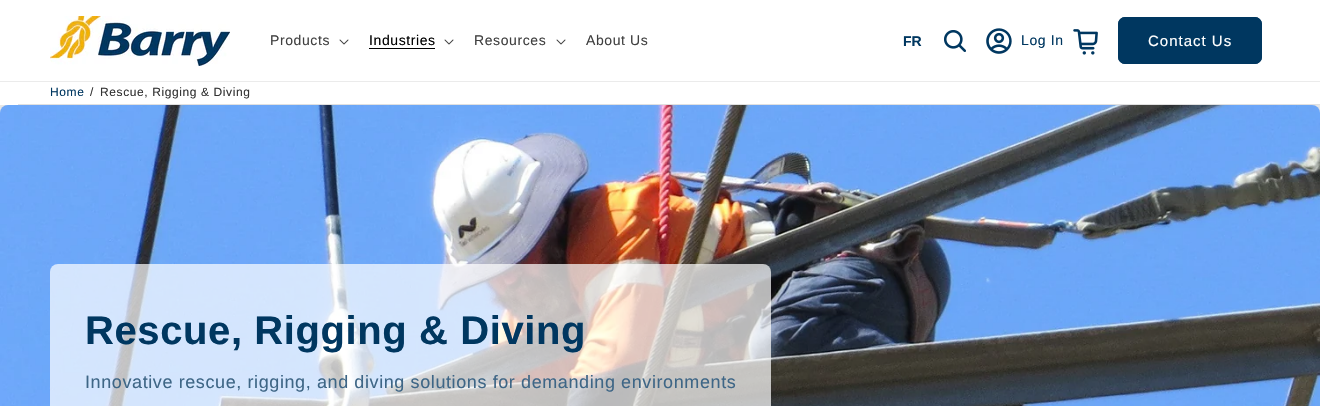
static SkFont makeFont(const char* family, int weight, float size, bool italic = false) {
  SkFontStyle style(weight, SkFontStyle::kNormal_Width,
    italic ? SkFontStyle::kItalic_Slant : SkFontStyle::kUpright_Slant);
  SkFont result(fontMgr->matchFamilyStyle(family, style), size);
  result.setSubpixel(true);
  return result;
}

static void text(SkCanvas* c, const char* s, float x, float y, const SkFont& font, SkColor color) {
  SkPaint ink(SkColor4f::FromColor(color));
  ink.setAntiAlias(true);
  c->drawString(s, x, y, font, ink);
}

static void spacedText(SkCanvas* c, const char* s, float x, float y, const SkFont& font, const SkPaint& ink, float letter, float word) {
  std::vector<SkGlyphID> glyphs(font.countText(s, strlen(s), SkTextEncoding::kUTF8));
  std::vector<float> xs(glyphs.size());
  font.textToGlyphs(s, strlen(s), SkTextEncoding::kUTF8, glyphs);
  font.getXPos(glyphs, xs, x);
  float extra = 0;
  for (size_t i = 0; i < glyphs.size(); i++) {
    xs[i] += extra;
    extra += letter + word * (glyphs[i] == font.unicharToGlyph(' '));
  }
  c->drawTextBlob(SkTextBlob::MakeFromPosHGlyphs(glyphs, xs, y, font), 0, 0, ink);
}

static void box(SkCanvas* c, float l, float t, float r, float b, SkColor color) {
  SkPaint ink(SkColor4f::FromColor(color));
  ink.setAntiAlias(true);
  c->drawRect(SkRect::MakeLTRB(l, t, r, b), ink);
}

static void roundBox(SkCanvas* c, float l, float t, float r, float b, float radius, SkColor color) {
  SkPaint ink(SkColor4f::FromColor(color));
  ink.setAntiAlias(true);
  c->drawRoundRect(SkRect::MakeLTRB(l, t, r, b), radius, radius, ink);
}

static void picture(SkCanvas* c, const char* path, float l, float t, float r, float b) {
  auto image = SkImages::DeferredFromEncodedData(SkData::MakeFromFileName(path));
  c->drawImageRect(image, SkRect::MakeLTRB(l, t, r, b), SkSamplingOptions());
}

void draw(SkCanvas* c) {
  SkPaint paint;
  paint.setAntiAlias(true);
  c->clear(0xffffffff);
  box(c, 0, 81, 1320, 82, 0xffebebeb);
  picture(c, "img_01.png", 50, 16, 230, 66);
  SkFont face1 = makeFont("Liberation Sans", 400, 14);
  paint.setColor(0xff404040);
  spacedText(c, "Products", 270, 45, face1, paint, 0.6f, 0);
  picture(c, "img_02.png", 339, 39, 349, 45);
  paint.setColor(0xff000000);
  spacedText(c, "Industries", 369, 45, face1, paint, 0.6f, 0);
  box(c, 369, 48, 435, 49, 0xff000000);
  picture(c, "img_02.png", 444, 39, 454, 45);
  paint.setColor(0xff404040);
  spacedText(c, "Resources", 474, 45, face1, paint, 0.6f, 0);
  picture(c, "img_02.png", 556, 39, 566, 45);
  spacedText(c, "About Us", 586, 45, face1, paint, 0.6f, 0);
  SkFont face2 = makeFont("Liberation Sans", 700, 14);
  text(c, "FR", 903, 46, face2, 0xff003760);
  picture(c, "img_03.png", 944, 30, 966, 52);
  picture(c, "img_04.png", 986, 28, 1012, 54);
  paint.setColor(0xff003760);
  spacedText(c, "Log In", 1021, 45, face1, paint, 0.6f, 0);
  picture(c, "img_05.png", 1073, 29, 1098, 55);
  roundBox(c, 1118, 17, 1262, 64, 7, 0xff003760);
  paint.setStyle(SkPaint::kStroke_Style);
  paint.setStrokeWidth(1);
  c->drawRoundRect(SkRect::MakeLTRB(1118.5f, 17.5f, 1261.5f, 63.5f), 6.5f, 6.5f, paint);
  SkFont face3 = makeFont("Liberation Sans", 400, 15);
  paint.setStyle(SkPaint::kFill_Style);
  paint.setColor(0xffffffff);
  spacedText(c, "Contact Us", 1148, 46, face3, paint, 1, 0);
  SkFont face4 = makeFont("Liberation Sans", 400, 12);
  paint.setColor(0xff003760);
  spacedText(c, "Home", 50, 96, face4, paint, 0.6f, 0);
  paint.setColor(0xff333333);
  spacedText(c, "/", 90, 96, face4, paint, 0.6f, 0);
  spacedText(c, "Rescue, Rigging & Diving", 100, 96, face4, paint, 0.6f, 0);
  box(c, 18, 104, 1320, 105, 0xffe0e0e0);
  box(c, 0, 105, 1320, 113, 0xffe6e6e6);
  picture(c, "img_06.png", 0, 105, 1320, 406);
  roundBox(c, 50, 264, 771, 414, 8, 0xb3ffffff);
  SkFont face5 = makeFont("Liberation Sans", 700, 40);
  paint.setColor(0xff003760);
  spacedText(c, "Rescue, Rigging & Diving", 85, 344, face5, paint, 0.6f, 0);
  SkFont face6 = makeFont("Liberation Sans", 400, 18);
  paint.setColor(0xff3e6686);
  spacedText(c, "Innovative rescue, rigging, and diving solutions for demanding environments", 85, 388, face6, paint, 0.6f, 0);
}
